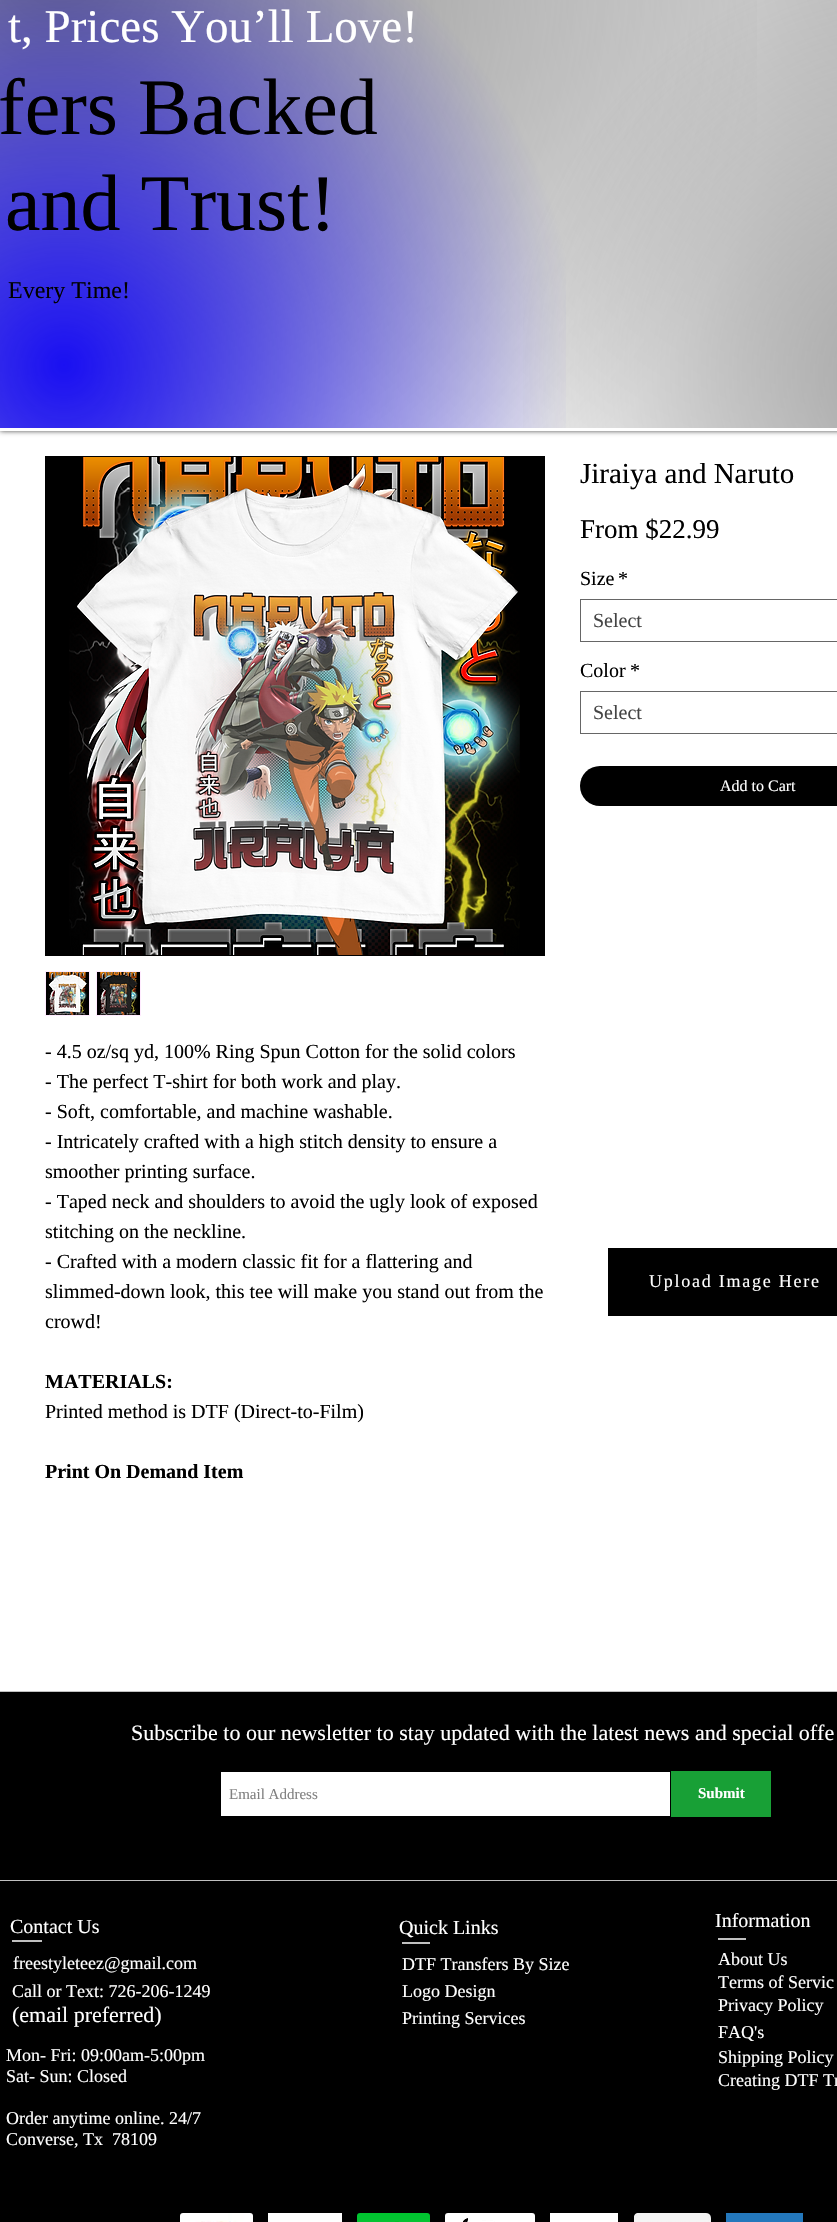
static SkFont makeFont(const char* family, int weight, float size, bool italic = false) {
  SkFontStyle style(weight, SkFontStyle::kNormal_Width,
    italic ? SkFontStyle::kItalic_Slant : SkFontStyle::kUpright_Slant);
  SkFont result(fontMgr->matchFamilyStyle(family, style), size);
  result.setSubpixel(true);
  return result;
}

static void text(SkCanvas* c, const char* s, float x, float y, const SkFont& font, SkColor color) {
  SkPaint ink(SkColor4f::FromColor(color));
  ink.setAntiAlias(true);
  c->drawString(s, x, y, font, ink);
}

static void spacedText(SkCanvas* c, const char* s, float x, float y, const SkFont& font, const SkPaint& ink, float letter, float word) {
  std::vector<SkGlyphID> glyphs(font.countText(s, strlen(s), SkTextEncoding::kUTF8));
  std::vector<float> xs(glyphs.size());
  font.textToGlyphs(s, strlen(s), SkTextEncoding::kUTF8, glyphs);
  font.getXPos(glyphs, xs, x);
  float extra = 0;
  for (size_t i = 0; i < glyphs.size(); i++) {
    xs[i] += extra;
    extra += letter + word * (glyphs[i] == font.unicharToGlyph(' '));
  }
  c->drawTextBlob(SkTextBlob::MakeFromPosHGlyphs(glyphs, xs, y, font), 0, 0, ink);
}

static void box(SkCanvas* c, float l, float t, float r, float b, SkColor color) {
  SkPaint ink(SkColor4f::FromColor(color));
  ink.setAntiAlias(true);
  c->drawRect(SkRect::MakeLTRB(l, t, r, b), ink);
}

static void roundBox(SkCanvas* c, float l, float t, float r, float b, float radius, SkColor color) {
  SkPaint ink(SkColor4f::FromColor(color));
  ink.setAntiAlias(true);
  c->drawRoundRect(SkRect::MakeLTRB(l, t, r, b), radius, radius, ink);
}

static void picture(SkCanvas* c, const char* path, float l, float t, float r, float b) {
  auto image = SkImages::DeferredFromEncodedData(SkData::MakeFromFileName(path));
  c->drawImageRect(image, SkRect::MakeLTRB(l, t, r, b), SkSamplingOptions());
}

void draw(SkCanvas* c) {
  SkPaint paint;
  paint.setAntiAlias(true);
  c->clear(0xff000000);
  box(c, 0, 431, 837, 1691, 0xffffffff);
  paint.setColor(0xb3000000);
  paint.setMaskFilter(SkMaskFilter::MakeBlur(kNormal_SkBlurStyle, 2.5f));
  c->drawRect(SkRect::MakeLTRB(0, -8, 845, 431), paint);
  paint.setMaskFilter(nullptr);
  box(c, 0, 428, 837, 431, 0xffffffff);
  {
    const SkColor colors[] = {0xffb9b9b9, 0xffffffff};
    const float stops[] = {0, 0.7f};
    paint.setShader(SkGradientShader::MakeRadial({918, -41}, 1031, colors, stops, 2, SkTileMode::kClamp));
    paint.setAlpha(255);
  }
  c->drawRect(SkRect::MakeLTRB(0, 0, 837, 428), paint);
  {
    const SkColor colors[] = {0xff757575, 0x00757575};
    const float stops[] = {0, 0.7f};
    paint.setShader(SkGradientShader::MakeRadial({60, -35}, 1030, colors, stops, 2, SkTileMode::kClamp));
    paint.setAlpha(255);
  }
  c->drawRect(SkRect::MakeLTRB(0, 0, 757, 428), paint);
  {
    const SkColor colors[] = {0xfc170df2, 0x00170df2};
    const float stops[] = {0, 0.5f};
    paint.setShader(SkGradientShader::MakeRadial({64, 365}, 1028, colors, stops, 2, SkTileMode::kClamp));
    paint.setAlpha(255);
  }
  c->drawRect(SkRect::MakeLTRB(0, 0, 566, 428), paint);
  {
    const SkColor colors[] = {0xffa3a3a3, 0x00a3a3a3};
    const float stops[] = {0, 0.4f};
    paint.setShader(SkGradientShader::MakeRadial({925, 373}, 1040, colors, stops, 2, SkTileMode::kClamp));
    paint.setAlpha(255);
  }
  c->drawRect(SkRect::MakeLTRB(523, 0, 837, 428), paint);
  SkFont face1 = makeFont("Liberation Serif", 400, 47);
  text(c, "t, Prices You’ll Love!", 8, 42, face1, 0xffffffff);
  SkFont face2 = makeFont("Liberation Serif", 400, 80);
  text(c, "fers Backed", -2, 134, face2, 0xff000000);
  text(c, "and Trust!", 5, 230, face2, 0xff000000);
  SkFont face3 = makeFont("Liberation Serif", 400, 24);
  text(c, "Every Time!", 8, 298, face3, 0xff000000);
  SkFont face4 = makeFont("Liberation Serif", 400, 29);
  text(c, "Jiraiya and Naruto", 580, 483, face4, 0xff000000);
  SkFont face5 = makeFont("Liberation Serif", 400, 27);
  text(c, "From $22.99", 580, 538, face5, 0xff000000);
  SkFont face6 = makeFont("Liberation Serif", 400, 20);
  text(c, "Size", 580, 585, face6, 0xff000000);
  text(c, "*", 618, 585, face6, 0xff000000);
  paint.setStyle(SkPaint::kStroke_Style);
  paint.setStrokeWidth(1);
  paint.setShader(nullptr);
  paint.setColor(0xff666666);
  c->drawRect(SkRect::MakeLTRB(580.5f, 599.5f, 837.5f, 641.5f), paint);
  text(c, "Select", 593, 627, face6, 0xff444444);
  text(c, "Color", 580, 677, face6, 0xff000000);
  text(c, "*", 630, 677, face6, 0xff000000);
  c->drawRect(SkRect::MakeLTRB(580.5f, 691.5f, 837.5f, 733.5f), paint);
  text(c, "Select", 593, 719, face6, 0xff444444);
  roundBox(c, 580, 766, 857, 806, 20, 0xff000000);
  SkFont face7 = makeFont("Liberation Serif", 400, 16);
  text(c, "Add to Cart", 720, 791, face7, 0xffffffff);
  paint.setColor(0xff000000);
  c->drawRect(SkRect::MakeLTRB(45.5f, 456.5f, 544.5f, 955.5f), paint);
  picture(c, "img_01.png", 46, 457, 544, 955);
  box(c, 45, 971, 90, 1016, 0xffffebff);
  picture(c, "img_02.png", 46, 972, 89, 1015);
  box(c, 96, 971, 141, 1016, 0xffffebff);
  picture(c, "img_03.png", 97, 972, 140, 1015);
  text(c, "- 4.5 oz/sq yd, 100% Ring Spun Cotton for the solid colors", 45, 1058, face6, 0xff000000);
  text(c, "- The perfect T-shirt for both work and play.", 45, 1088, face6, 0xff000000);
  text(c, "- Soft, comfortable, and machine washable.", 45, 1118, face6, 0xff000000);
  text(c, "- Intricately crafted with a high stitch density to ensure a", 45, 1148, face6, 0xff000000);
  text(c, "smoother printing surface.", 45, 1178, face6, 0xff000000);
  text(c, "- Taped neck and shoulders to avoid the ugly look of exposed", 45, 1208, face6, 0xff000000);
  text(c, "stitching on the neckline.", 45, 1238, face6, 0xff000000);
  text(c, "- Crafted with a modern classic fit for a flattering and", 45, 1268, face6, 0xff000000);
  text(c, "slimmed-down look, this tee will make you stand out from the", 45, 1298, face6, 0xff000000);
  text(c, "crowd!", 45, 1328, face6, 0xff000000);
  SkFont face8 = makeFont("Liberation Serif", 700, 20);
  text(c, "MATERIALS:", 45, 1388, face8, 0xff000000);
  text(c, "Printed method is DTF (Direct-to-Film)", 45, 1418, face6, 0xff000000);
  text(c, "Print On Demand Item", 45, 1478, face8, 0xff000000);
  box(c, 608, 1248, 837, 1316, 0xff000000);
  SkFont face9 = makeFont("Liberation Serif", 400, 18);
  paint.setStyle(SkPaint::kFill_Style);
  paint.setColor(0xffffffff);
  spacedText(c, "Upload Image Here", 649, 1287, face9, paint, 1.75f, 0);
  box(c, 0, 1691, 837, 1692, 0xffc0c0c0);
  SkFont face10 = makeFont("Liberation Serif", 400, 22);
  text(c, "Subscribe to our newsletter to stay updated with the latest news and special offe", 131, 1740, face10, 0xffffffff);
  box(c, 221, 1772, 670, 1816, 0xffffffff);
  SkFont face11 = makeFont("Liberation Serif", 400, 15);
  text(c, "Email Address", 229, 1799, face11, 0xff808080);
  box(c, 671, 1771, 771, 1817, 0xff18a036);
  SkFont face12 = makeFont("Liberation Serif", 700, 15);
  text(c, "Submit", 698, 1798, face12, 0xffffffff);
  box(c, 0, 1880, 837, 1881, 0xffc0c0c0);
  text(c, "Contact Us", 10, 1933, face6, 0xffffffff);
  text(c, "freestyleteez@gmail.com", 13, 1969, face9, 0xffffffff);
  text(c, "Call or Text: 726-206-1249", 12, 1997, face9, 0xffffffff);
  text(c, "(email preferred)", 12, 2022, face10, 0xffffffff);
  text(c, "Quick Links", 399, 1934, face6, 0xffffffff);
  text(c, "Information", 715, 1927, face6, 0xffffffff);
  text(c, "About Us", 718, 1965, face9, 0xffffffff);
  text(c, "Terms of Servic", 718, 1988, face9, 0xffffffff);
  text(c, "Privacy Policy", 718, 2011, face9, 0xffffffff);
  text(c, "FAQ's", 718, 2038, face9, 0xffffffff);
  text(c, "Shipping Policy", 718, 2063, face9, 0xffffffff);
  text(c, "Creating DTF Tr", 718, 2086, face9, 0xffffffff);
  box(c, 718, 1938, 746, 1940, 0xffc0c0c0);
  box(c, 12, 1940, 42, 1942, 0xffc0c0c0);
  box(c, 402, 1942, 430, 1944, 0xffc0c0c0);
  text(c, "DTF Transfers By Size", 402, 1970, face9, 0xffffffff);
  text(c, "Logo Design", 402, 1997, face9, 0xffffffff);
  text(c, "Printing Services", 402, 2024, face9, 0xffffffff);
  text(c, "Mon- Fri: 09:00am-5:00pm", 6, 2061, face9, 0xffffffff);
  text(c, "Sat- Sun: Closed", 6, 2082, face9, 0xffffffff);
  text(c, "Order anytime online. 24/7", 6, 2124, face9, 0xffffffff);
  text(c, "Converse, Tx  78109", 6, 2145, face9, 0xffffffff);
  picture(c, "img_04.png", 180, 2213, 253, 2222);
  box(c, 268, 2213, 342, 2222, 0xfffefefe);
  picture(c, "img_05.png", 357, 2213, 430, 2222);
  picture(c, "img_06.png", 445, 2213, 535, 2222);
  box(c, 550, 2213, 618, 2222, 0xffffffff);
  picture(c, "img_07.png", 634, 2213, 711, 2222);
  box(c, 726, 2213, 803, 2222, 0xff2478bc);
}
